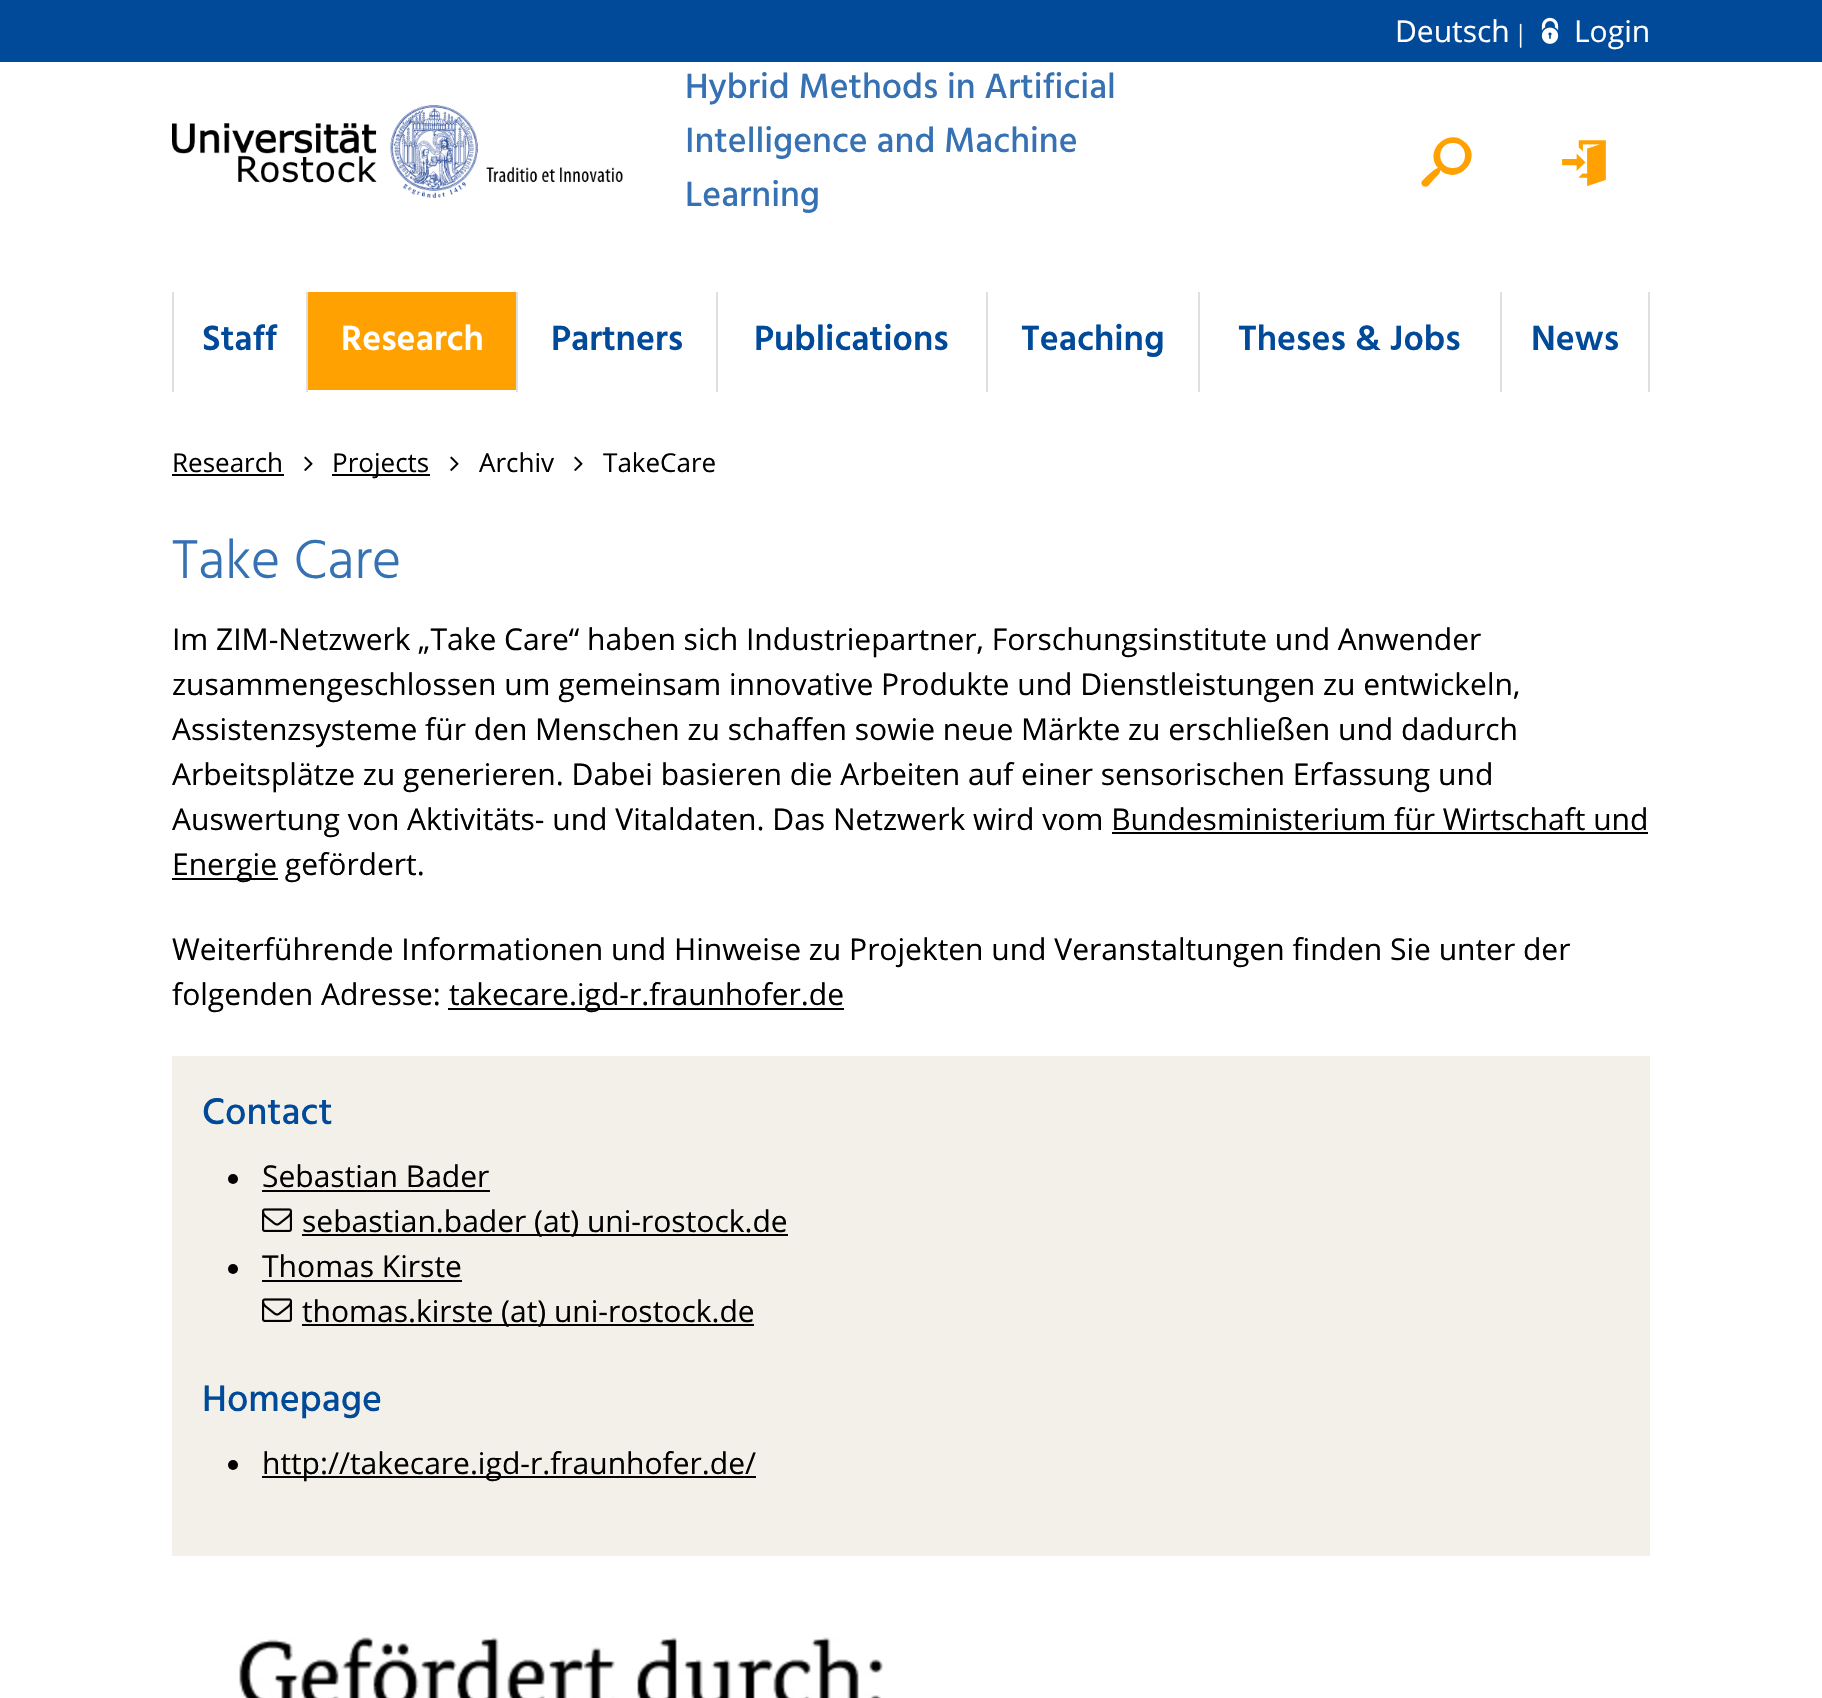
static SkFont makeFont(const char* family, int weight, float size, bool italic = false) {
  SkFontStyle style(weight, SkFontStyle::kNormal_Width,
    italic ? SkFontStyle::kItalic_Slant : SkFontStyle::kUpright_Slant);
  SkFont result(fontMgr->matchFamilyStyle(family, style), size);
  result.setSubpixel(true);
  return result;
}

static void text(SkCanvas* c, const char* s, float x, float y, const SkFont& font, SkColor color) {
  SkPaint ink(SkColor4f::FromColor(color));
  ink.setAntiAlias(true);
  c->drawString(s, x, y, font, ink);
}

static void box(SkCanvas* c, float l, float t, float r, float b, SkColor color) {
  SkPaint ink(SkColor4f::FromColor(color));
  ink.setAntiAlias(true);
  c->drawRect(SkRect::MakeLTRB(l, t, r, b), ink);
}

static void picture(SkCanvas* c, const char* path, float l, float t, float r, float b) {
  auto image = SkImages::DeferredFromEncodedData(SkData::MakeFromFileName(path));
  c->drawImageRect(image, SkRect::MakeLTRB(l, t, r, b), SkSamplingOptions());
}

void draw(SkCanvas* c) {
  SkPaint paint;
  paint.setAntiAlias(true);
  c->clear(0xffffffff);
  box(c, 0, 0, 1822, 62, 0xff004a99);
  SkFont face1 = makeFont("Open Sans", 400, 30);
  text(c, "Deutsch", 1395, 42, face1, 0xffffffff);
  SkFont face2 = makeFont("Liberation Serif", 400, 26);
  text(c, "|", 1518, 42, face2, 0xffffffff);
  picture(c, "img_01.png", 1541, 17, 1559, 44);
  text(c, "Login", 1574, 42, face1, 0xffffffff);
  picture(c, "img_02.png", 172, 105, 623, 198);
  SkFont face3 = makeFont("Hind", 500, 36);
  text(c, "Hybrid Methods in Artificial", 685, 98, face3, 0xff3672b3);
  text(c, "Intelligence and Machine", 685, 152, face3, 0xff3672b3);
  text(c, "Learning", 685, 206, face3, 0xff3672b3);
  paint.setColor(0xffffa100);
  c->drawPath(SkPathBuilder().moveTo(1423, 180).cubicTo(1425, 178, 1435, 168, 1438, 168).cubicTo(1423, 150, 1449, 126, 1466, 143).cubicTo(1483, 159, 1458, 186, 1440, 170).cubicTo(1441, 173, 1437, 176, 1435, 178).lineTo(1428, 186).cubicTo(1423, 189, 1419, 183, 1423, 180).close().moveTo(1453, 168).cubicTo(1469, 168, 1469, 143, 1453, 143).cubicTo(1436, 143, 1436, 168, 1453, 168).close().detach(), paint);
  picture(c, "img_03.png", 1562, 140, 1606, 186);
  box(c, 172, 292, 174, 392, 0xffdfdfdf);
  SkFont face4 = makeFont("Hind", 600, 36);
  text(c, "Staff", 202, 350, face4, 0xff004a99);
  box(c, 306, 292, 308, 392, 0xffdfdfdf);
  box(c, 308, 292, 516, 390, 0xffffa100);
  text(c, "Research", 341, 350, face4, 0xffffffff);
  box(c, 516, 292, 518, 392, 0xffdfdfdf);
  text(c, "Partners", 551, 350, face4, 0xff004a99);
  box(c, 716, 292, 718, 392, 0xffdfdfdf);
  text(c, "Publications", 754, 350, face4, 0xff004a99);
  box(c, 986, 292, 988, 392, 0xffdfdfdf);
  text(c, "Teaching", 1021, 350, face4, 0xff004a99);
  box(c, 1198, 292, 1200, 392, 0xffdfdfdf);
  text(c, "Theses & Jobs", 1238, 350, face4, 0xff004a99);
  box(c, 1648, 292, 1650, 392, 0xffdfdfdf);
  box(c, 1500, 292, 1502, 392, 0xffdfdfdf);
  text(c, "News", 1531, 350, face4, 0xff004a99);
  SkFont face5 = makeFont("Open Sans", 400, 26);
  text(c, "Research", 172, 472, face5, 0xff000000);
  box(c, 172, 474, 284, 476, 0xff000000);
  picture(c, "img_04.png", 304, 456, 313, 471);
  box(c, 332, 474, 430, 476, 0xff000000);
  text(c, "Projects", 332, 472, face5, 0xff000000);
  picture(c, "img_04.png", 450, 456, 459, 471);
  text(c, "Archiv", 479, 472, face5, 0xff000000);
  picture(c, "img_04.png", 574, 456, 583, 471);
  text(c, "TakeCare", 603, 472, face5, 0xff000000);
  SkFont face6 = makeFont("Hind", 300, 56);
  text(c, "Take Care", 172, 578, face6, 0xff3672b3);
  text(c, "Im ZIM-Netzwerk „Take Care“ haben sich Industriepartner, Forschungsinstitute und Anwender", 172, 650, face1, 0xff000000);
  text(c, "zusammengeschlossen um gemeinsam innovative Produkte und Dienstleistungen zu entwickeln,", 172, 695, face1, 0xff000000);
  text(c, "Assistenzsysteme für den Menschen zu schaffen sowie neue Märkte zu erschließen und dadurch", 172, 740, face1, 0xff000000);
  text(c, "Arbeitsplätze zu generieren. Dabei basieren die Arbeiten auf einer sensorischen Erfassung und", 172, 785, face1, 0xff000000);
  text(c, "Auswertung von Aktivitäts- und Vitaldaten. Das Netzwerk wird vom Bundesministerium für Wirtschaft und", 172, 830, face1, 0xff000000);
  box(c, 172, 878, 278, 880, 0xff000000);
  text(c, "Energie gefördert.", 172, 875, face1, 0xff000000);
  box(c, 1112, 832, 1648, 834, 0xff000000);
  text(c, "Weiterführende Informationen und Hinweise zu Projekten und Veranstaltungen finden Sie unter der", 172, 960, face1, 0xff000000);
  text(c, "folgenden Adresse:", 172, 1005, face1, 0xff000000);
  box(c, 448, 1008, 844, 1010, 0xff000000);
  text(c, "takecare.igd-r.fraunhofer.de", 449, 1005, face1, 0xff000000);
  box(c, 172, 1056, 1650, 1556, 0xfff2f0e9);
  SkFont face7 = makeFont("Hind", 500, 38);
  text(c, "Contact", 202, 1124, face7, 0xff004a99);
  paint.setColor(0xff000000);
  c->drawCircle(233, 1179, 5, paint);
  text(c, "Sebastian Bader", 262, 1187, face1, 0xff000000);
  box(c, 262, 1190, 490, 1192, 0xff000000);
  picture(c, "img_05.png", 262, 1208, 292, 1232);
  box(c, 302, 1234, 788, 1236, 0xff000000);
  text(c, "sebastian.bader (at) uni-rostock.de", 302, 1232, face1, 0xff000000);
  c->drawCircle(233, 1269, 5, paint);
  text(c, "Thomas Kirste", 262, 1277, face1, 0xff000000);
  box(c, 262, 1280, 462, 1282, 0xff000000);
  picture(c, "img_05.png", 262, 1298, 292, 1322);
  box(c, 302, 1324, 754, 1326, 0xff000000);
  text(c, "thomas.kirste (at) uni-rostock.de", 302, 1322, face1, 0xff000000);
  text(c, "Homepage", 202, 1411, face7, 0xff004a99);
  c->drawCircle(233, 1465, 5, paint);
  box(c, 262, 1476, 756, 1478, 0xff000000);
  text(c, "http://takecare.igd-r.fraunhofer.de/", 262, 1474, face1, 0xff000000);
  picture(c, "img_06.png", 239, 1637, 883, 1698);
}
